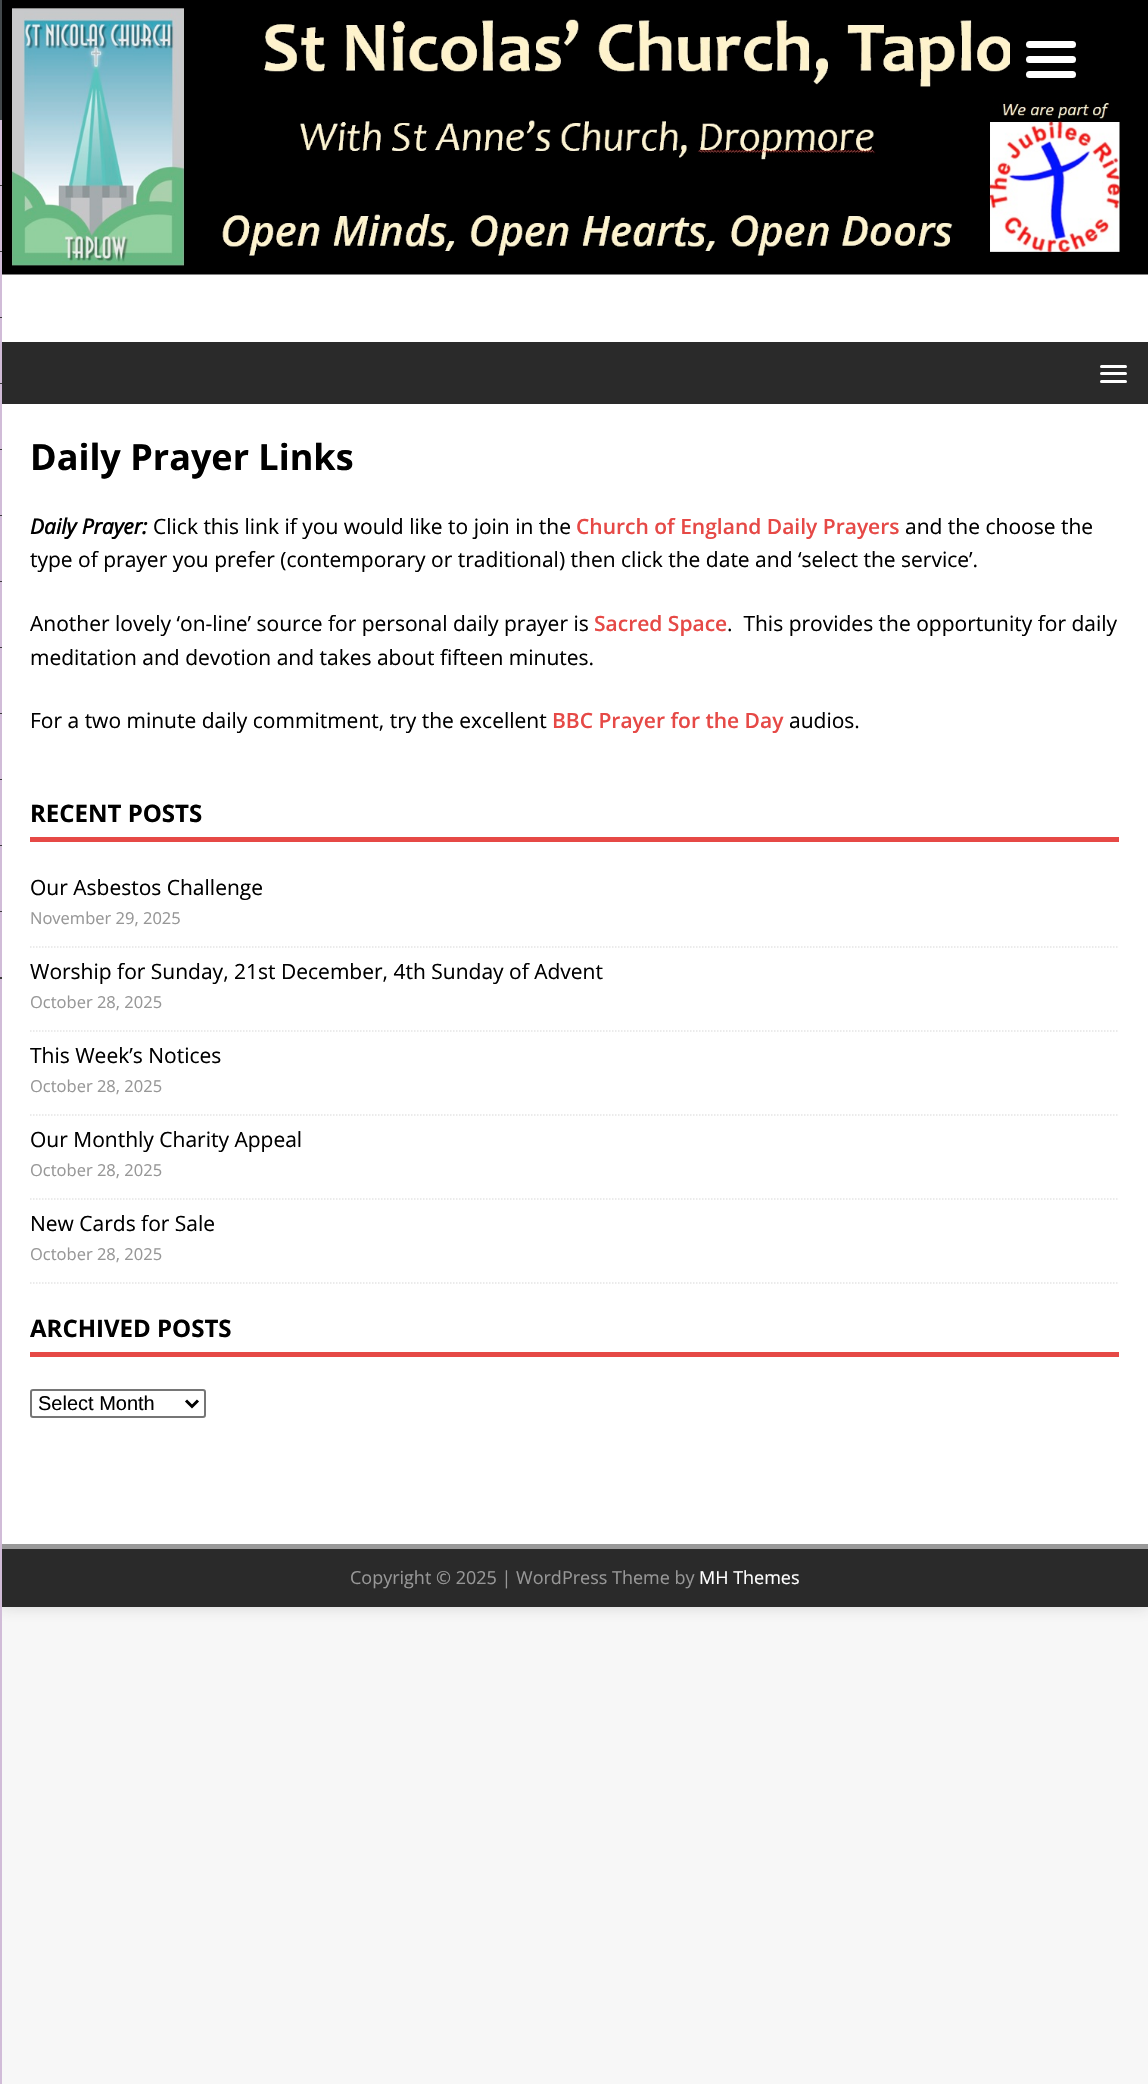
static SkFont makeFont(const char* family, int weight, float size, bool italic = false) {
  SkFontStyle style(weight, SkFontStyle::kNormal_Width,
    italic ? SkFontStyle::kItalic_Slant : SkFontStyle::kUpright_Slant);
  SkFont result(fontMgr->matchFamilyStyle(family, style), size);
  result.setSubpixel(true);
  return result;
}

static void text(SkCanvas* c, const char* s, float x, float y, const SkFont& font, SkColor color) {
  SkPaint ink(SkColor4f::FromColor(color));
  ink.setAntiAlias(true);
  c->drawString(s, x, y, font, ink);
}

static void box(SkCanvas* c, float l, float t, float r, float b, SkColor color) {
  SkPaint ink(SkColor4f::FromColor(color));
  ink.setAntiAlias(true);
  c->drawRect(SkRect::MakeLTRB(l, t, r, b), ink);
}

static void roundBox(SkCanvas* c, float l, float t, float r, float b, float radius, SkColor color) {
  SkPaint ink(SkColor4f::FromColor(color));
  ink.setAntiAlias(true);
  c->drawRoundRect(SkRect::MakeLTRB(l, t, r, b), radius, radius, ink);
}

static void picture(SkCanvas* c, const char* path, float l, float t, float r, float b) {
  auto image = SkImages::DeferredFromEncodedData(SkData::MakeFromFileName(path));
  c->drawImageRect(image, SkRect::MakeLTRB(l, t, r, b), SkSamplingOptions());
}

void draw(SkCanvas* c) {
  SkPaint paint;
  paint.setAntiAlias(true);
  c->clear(0xfff7f7f7);
  paint.setColor(0x2b323232);
  paint.setMaskFilter(SkMaskFilter::MakeBlur(kNormal_SkBlurStyle, 7.5f));
  c->drawRect(SkRect::MakeLTRB(0, 0, 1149, 1607), paint);
  paint.setMaskFilter(nullptr);
  box(c, 0, 1544, 1148, 1549, 0xff999999);
  box(c, 0, 120, 2, 2084, 0xffd1bcd8);
  box(c, 0, 0, 2, 120, 0xff43494c);
  box(c, 0, 185, 2, 186, 0xff3c3c3c);
  box(c, 0, 251, 2, 252, 0xff3c3c3c);
  box(c, 0, 317, 2, 318, 0xff3c3c3c);
  box(c, 0, 383, 2, 384, 0xff3c3c3c);
  box(c, 0, 449, 2, 450, 0xff3c3c3c);
  box(c, 0, 515, 2, 516, 0xff3c3c3c);
  box(c, 0, 581, 2, 582, 0xff3c3c3c);
  box(c, 0, 647, 2, 648, 0xff3c3c3c);
  box(c, 0, 713, 2, 714, 0xff3c3c3c);
  box(c, 0, 779, 2, 780, 0xff3c3c3c);
  box(c, 0, 845, 2, 846, 0xff3c3c3c);
  box(c, 0, 911, 2, 912, 0xff3c3c3c);
  box(c, 0, 977, 2, 979, 0xff3c3c3c);
  box(c, 2, 274, 1148, 342, 0xffffffff);
  picture(c, "img_01.png", 2, 0, 1148, 275);
  roundBox(c, 1010, 15, 1092, 98, 8, 0xff000000);
  roundBox(c, 1026, 56, 1076, 63, 3.5f, 0xffffffff);
  roundBox(c, 1026, 41, 1076, 48, 3.5f, 0xffffffff);
  roundBox(c, 1026, 71, 1076, 78, 3.5f, 0xffffffff);
  box(c, 2, 342, 1148, 404, 0xff2a2a2a);
  roundBox(c, 1100, 365, 1127, 368, 1.5f, 0xffffffff);
  roundBox(c, 1100, 372, 1127, 375, 1.5f, 0xffffffff);
  roundBox(c, 1100, 380, 1127, 383, 1.5f, 0xffffffff);
  box(c, 2, 404, 1148, 1544, 0xffffffff);
  SkFont face1 = makeFont("Open Sans", 700, 36);
  text(c, "Daily Prayer Links", 30, 470, face1, 0xff000000);
  SkFont face2 = makeFont("Open Sans", 700, 21, true);
  text(c, "Daily Prayer:", 30, 534, face2, 0xff000000);
  SkFont face3 = makeFont("Open Sans", 400, 21);
  text(c, "Click this link if you would like to join in the", 153, 534, face3, 0xff000000);
  SkFont face4 = makeFont("Open Sans", 600, 21);
  text(c, "Church of England Daily Prayers", 576, 534, face4, 0xffe64946);
  text(c, "and the choose the", 905, 534, face3, 0xff000000);
  text(c, "type of prayer you prefer (contemporary or traditional) then click the date and ‘select the service’.", 30, 567, face3, 0xff000000);
  text(c, "Another lovely ‘on-line’ source for personal daily prayer is", 30, 631, face3, 0xff000000);
  text(c, "Sacred Space", 594, 631, face4, 0xffe64946);
  text(c, ".  This provides the opportunity for daily", 727, 631, face3, 0xff000000);
  text(c, "meditation and devotion and takes about fifteen minutes.", 30, 665, face3, 0xff000000);
  text(c, "For a two minute daily commitment, try the excellent", 30, 728, face3, 0xff000000);
  text(c, "BBC Prayer for the Day", 552, 728, face4, 0xffe64946);
  text(c, "audios.", 789, 728, face3, 0xff000000);
  box(c, 30, 837, 1119, 842, 0xffe64946);
  SkFont face5 = makeFont("Open Sans", 700, 24);
  text(c, "RECENT POSTS", 30, 822, face5, 0xff000000);
  paint.setStyle(SkPaint::kStroke_Style);
  paint.setStrokeWidth(1.5f);
  paint.setColor(0xffe5e5e5);
  paint.setPathEffect(SkDashPathEffect::Make({{1.5f, 1.5f}}, 0));
  c->drawPath(SkPathBuilder().moveTo(30, 947).lineTo(1119, 947).detach(), paint);
  paint.setPathEffect(nullptr);
  text(c, "Our Asbestos Challenge", 30, 895, face3, 0xff000000);
  SkFont face6 = makeFont("Open Sans", 400, 16.5f);
  text(c, "November 29, 2025", 30, 924, face6, 0xff979797);
  paint.setPathEffect(SkDashPathEffect::Make({{1.5f, 1.5f}}, 0));
  c->drawPath(SkPathBuilder().moveTo(30, 1031).lineTo(1119, 1031).detach(), paint);
  paint.setPathEffect(nullptr);
  text(c, "Worship for Sunday, 21st December, 4th Sunday of Advent", 30, 979, face3, 0xff000000);
  text(c, "October 28, 2025", 30, 1008, face6, 0xff979797);
  paint.setPathEffect(SkDashPathEffect::Make({{1.5f, 1.5f}}, 0));
  c->drawPath(SkPathBuilder().moveTo(30, 1115).lineTo(1119, 1115).detach(), paint);
  paint.setPathEffect(nullptr);
  text(c, "This Week’s Notices", 30, 1063, face3, 0xff000000);
  text(c, "October 28, 2025", 30, 1092, face6, 0xff979797);
  paint.setPathEffect(SkDashPathEffect::Make({{1.5f, 1.5f}}, 0));
  c->drawPath(SkPathBuilder().moveTo(30, 1199).lineTo(1119, 1199).detach(), paint);
  paint.setPathEffect(nullptr);
  text(c, "Our Monthly Charity Appeal", 30, 1147, face3, 0xff000000);
  text(c, "October 28, 2025", 30, 1176, face6, 0xff979797);
  paint.setPathEffect(SkDashPathEffect::Make({{1.5f, 1.5f}}, 0));
  c->drawPath(SkPathBuilder().moveTo(30, 1283).lineTo(1119, 1283).detach(), paint);
  paint.setPathEffect(nullptr);
  text(c, "New Cards for Sale", 30, 1231, face3, 0xff000000);
  text(c, "October 28, 2025", 30, 1260, face6, 0xff979797);
  box(c, 30, 1352, 1119, 1357, 0xffe64946);
  text(c, "ARCHIVED POSTS", 30, 1337, face5, 0xff000000);
  paint.setStrokeWidth(2);
  paint.setColor(0xff767676);
  c->drawRoundRect(SkRect::MakeLTRB(31, 1390, 205, 1417), 2, 2, paint);
  paint.setStrokeWidth(3);
  paint.setColor(0xff000000);
  c->drawPath(SkPathBuilder().moveTo(186, 1400.5f).lineTo(192, 1406.5f).lineTo(198, 1400.5f).detach(), paint);
  SkFont face7 = makeFont("Liberation Sans", 400, 20);
  text(c, "Select Month", 38, 1410, face7, 0xff000000);
  box(c, 2, 1549, 1148, 1607, 0xff2a2a2a);
  SkFont face8 = makeFont("Open Sans", 400, 18);
  text(c, "Copyright © 2025 | WordPress Theme by", 350, 1584, face8, 0xff979797);
  text(c, "MH Themes", 699, 1584, face8, 0xffffffff);
}
